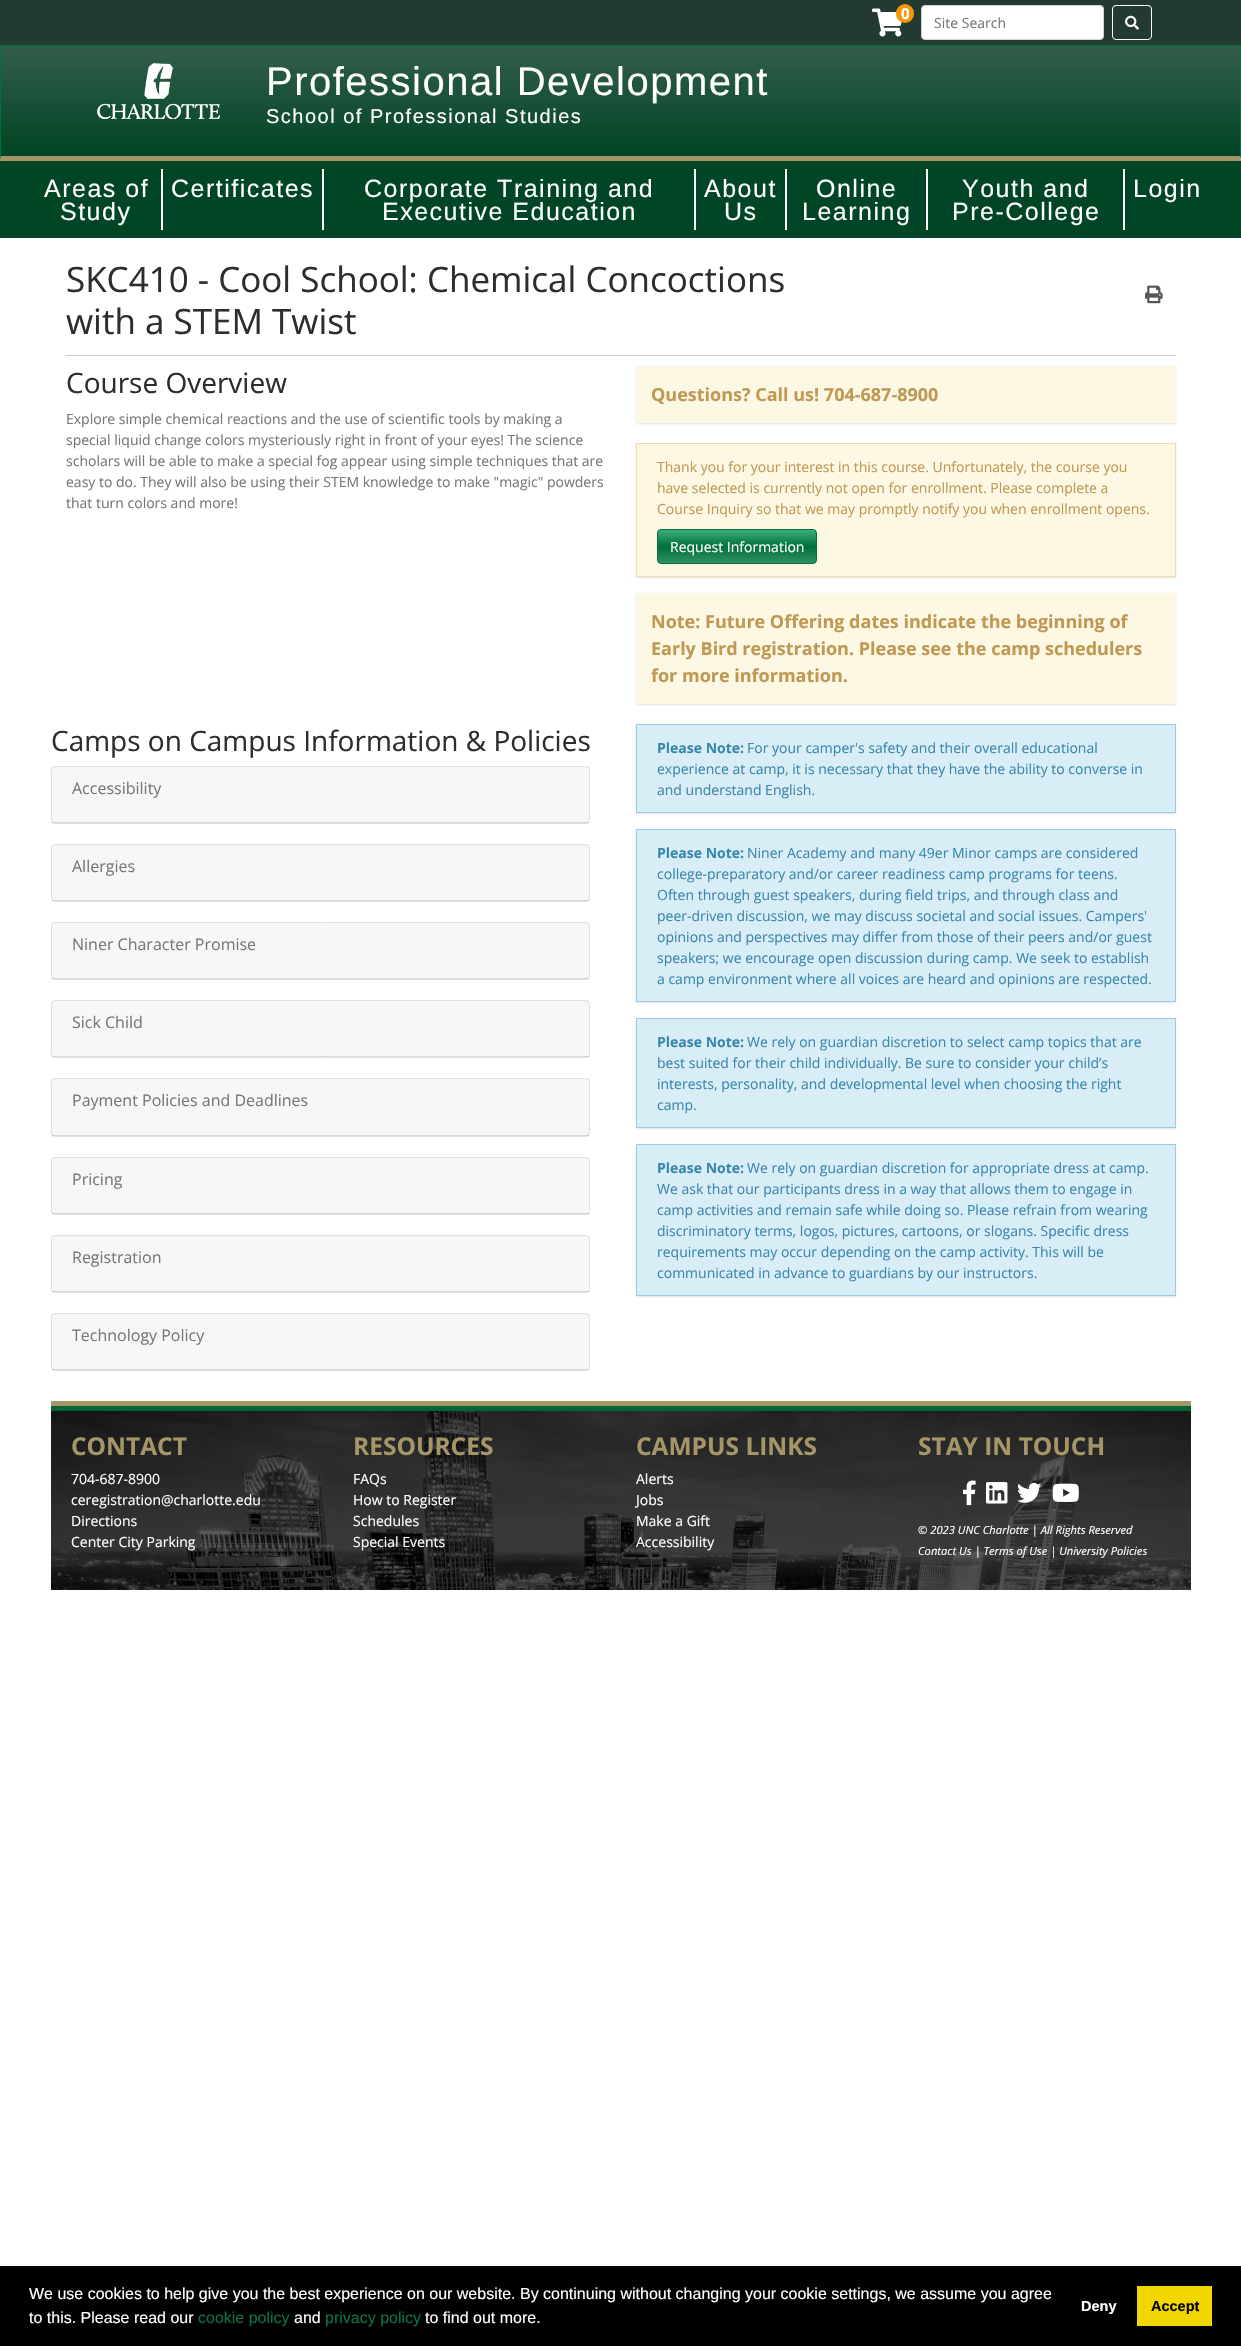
static SkFont makeFont(const char* family, int weight, float size, bool italic = false) {
  SkFontStyle style(weight, SkFontStyle::kNormal_Width,
    italic ? SkFontStyle::kItalic_Slant : SkFontStyle::kUpright_Slant);
  SkFont result(fontMgr->matchFamilyStyle(family, style), size);
  result.setSubpixel(true);
  return result;
}

static void text(SkCanvas* c, const char* s, float x, float y, const SkFont& font, SkColor color) {
  SkPaint ink(SkColor4f::FromColor(color));
  ink.setAntiAlias(true);
  c->drawString(s, x, y, font, ink);
}

static void spacedText(SkCanvas* c, const char* s, float x, float y, const SkFont& font, const SkPaint& ink, float letter, float word) {
  std::vector<SkGlyphID> glyphs(font.countText(s, strlen(s), SkTextEncoding::kUTF8));
  std::vector<float> xs(glyphs.size());
  font.textToGlyphs(s, strlen(s), SkTextEncoding::kUTF8, glyphs);
  font.getXPos(glyphs, xs, x);
  float extra = 0;
  for (size_t i = 0; i < glyphs.size(); i++) {
    xs[i] += extra;
    extra += letter + word * (glyphs[i] == font.unicharToGlyph(' '));
  }
  c->drawTextBlob(SkTextBlob::MakeFromPosHGlyphs(glyphs, xs, y, font), 0, 0, ink);
}

static void box(SkCanvas* c, float l, float t, float r, float b, SkColor color) {
  SkPaint ink(SkColor4f::FromColor(color));
  ink.setAntiAlias(true);
  c->drawRect(SkRect::MakeLTRB(l, t, r, b), ink);
}

static void roundBox(SkCanvas* c, float l, float t, float r, float b, float radius, SkColor color) {
  SkPaint ink(SkColor4f::FromColor(color));
  ink.setAntiAlias(true);
  c->drawRoundRect(SkRect::MakeLTRB(l, t, r, b), radius, radius, ink);
}

static void picture(SkCanvas* c, const char* path, float l, float t, float r, float b) {
  auto image = SkImages::DeferredFromEncodedData(SkData::MakeFromFileName(path));
  c->drawImageRect(image, SkRect::MakeLTRB(l, t, r, b), SkSamplingOptions());
}

void draw(SkCanvas* c) {
  SkPaint paint;
  paint.setAntiAlias(true);
  c->clear(0xffffffff);
  box(c, 0, 0, 1241, 45, 0xff223a30);
  picture(c, "img_01.png", 872, 8, 902, 37);
  roundBox(c, 896, 4, 914, 23, 9, 0xfff89406);
  SkFont face1 = makeFont("Open Sans", 700, 15);
  text(c, "0", 901, 19, face1, 0xffffffff);
  paint.setColor(0xffffffff);
  c->drawRoundRect(SkRect::MakeLTRB(921.5f, 5.5f, 1103.5f, 39.5f), 3.5f, 3.5f, paint);
  paint.setStyle(SkPaint::kStroke_Style);
  paint.setStrokeWidth(1);
  paint.setColor(0xffced4da);
  c->drawRoundRect(SkRect::MakeLTRB(921.5f, 5.5f, 1103.5f, 39.5f), 3.5f, 3.5f, paint);
  SkFont face2 = makeFont("Open Sans", 400, 14);
  text(c, "Site Search", 934, 28, face2, 0xff777777);
  paint.setColor(0xffffffff);
  c->drawRoundRect(SkRect::MakeLTRB(1112.5f, 5.5f, 1151.5f, 39.5f), 3.5f, 3.5f, paint);
  picture(c, "img_02.png", 1125, 15, 1139, 30);
  paint.setStyle(SkPaint::kFill_Style);
  {
    const SkColor colors[] = {0xff335d4b, 0xff004525};
    const float stops[] = {0, 1};
    const SkPoint ends[] = {{621, 46}, {621, 156}};
    paint.setShader(SkGradientShader::MakeLinear(ends, colors, stops, 2, SkTileMode::kClamp));
    paint.setAlpha(255);
  }
  c->drawRect(SkRect::MakeLTRB(1, 46, 1240, 156), paint);
  box(c, 0, 45, 1241, 46, 0xff00703c);
  paint.setShader(nullptr);
  paint.setColor(0xff00703c);
  c->drawPath(SkPathBuilder().moveTo(1241, 45).lineTo(1241, 161).lineTo(1240, 156).lineTo(1240, 46).close().detach(), paint);
  paint.setColor(0xffa69667);
  c->drawPath(SkPathBuilder().moveTo(1241, 161).lineTo(0, 161).lineTo(1, 156).lineTo(1240, 156).close().detach(), paint);
  paint.setColor(0xff00703c);
  c->drawPath(SkPathBuilder().moveTo(0, 161).lineTo(0, 45).lineTo(1, 46).lineTo(1, 156).close().detach(), paint);
  picture(c, "img_03.png", 97, 63, 220, 119);
  SkFont face3 = makeFont("Liberation Sans", 400, 40);
  paint.setColor(0xffffffff);
  spacedText(c, "Professional Development", 266, 95, face3, paint, 1.5f, 0);
  SkFont face4 = makeFont("Liberation Sans", 400, 20);
  spacedText(c, "School of Professional Studies", 266, 123, face4, paint, 1.5f, 0);
  box(c, 0, 161, 1241, 238, 0xff004525);
  box(c, 161, 169, 163, 230, 0xffffffff);
  SkFont face5 = makeFont("Liberation Sans", 400, 25);
  spacedText(c, "Areas of", 44, 197, face5, paint, 1.5f, 0);
  spacedText(c, "Study", 60, 220, face5, paint, 1.5f, 0);
  box(c, 322, 169, 324, 230, 0xffffffff);
  spacedText(c, "Certificates", 171, 197, face5, paint, 1.5f, 0);
  box(c, 694, 169, 696, 230, 0xffffffff);
  spacedText(c, "Corporate Training and", 364, 197, face5, paint, 1.5f, 0);
  spacedText(c, "Executive Education", 382, 220, face5, paint, 1.5f, 0);
  box(c, 785, 169, 787, 230, 0xffffffff);
  spacedText(c, "About", 704, 197, face5, paint, 1.5f, 0);
  spacedText(c, "Us", 724, 220, face5, paint, 1.5f, 0);
  box(c, 926, 169, 928, 230, 0xffffffff);
  spacedText(c, "Online", 816, 197, face5, paint, 1.5f, 0);
  spacedText(c, "Learning", 802, 220, face5, paint, 1.5f, 0);
  box(c, 1123, 169, 1125, 230, 0xffffffff);
  spacedText(c, "Youth and", 962, 197, face5, paint, 1.5f, 0);
  spacedText(c, "Pre-College", 952, 220, face5, paint, 1.5f, 0);
  spacedText(c, "Login", 1133, 197, face5, paint, 1.5f, 0);
  box(c, 66, 355, 1176, 356, 0xffcccccc);
  SkFont face6 = makeFont("Open Sans", 400, 35);
  text(c, "SKC410 - Cool School: Chemical Concoctions", 66, 292, face6, 0xff2d2d2d);
  text(c, "with a STEM Twist", 66, 334, face6, 0xff2d2d2d);
  picture(c, "img_04.png", 1145, 285, 1163, 304);
  SkFont face7 = makeFont("Open Sans", 400, 28);
  text(c, "Course Overview", 66, 393, face7, 0xff2d2d2d);
  text(c, "Explore simple chemical reactions and the use of scientific tools by making a", 66, 424, face2, 0xff777777);
  text(c, "special liquid change colors mysteriously right in front of your eyes! The science", 66, 445, face2, 0xff777777);
  text(c, "scholars will be able to make a special fog appear using simple techniques that are", 66, 466, face2, 0xff777777);
  text(c, "easy to do. They will also be using their STEM knowledge to make \"magic\" powders", 66, 487, face2, 0xff777777);
  text(c, "that turn colors and more!", 66, 508, face2, 0xff777777);
  paint.setColor(0x1c000000);
  paint.setMaskFilter(SkMaskFilter::MakeBlur(kNormal_SkBlurStyle, 1));
  c->drawRect(SkRect::MakeLTRB(636, 367, 1176, 424), paint);
  paint.setMaskFilter(nullptr);
  box(c, 636, 366, 1176, 423, 0xfffcf8e3);
  SkFont face8 = makeFont("Open Sans", 700, 18);
  text(c, "Questions? Call us! 704-687-8900", 651, 401, face8, 0xffc09853);
  paint.setMaskFilter(SkMaskFilter::MakeBlur(kNormal_SkBlurStyle, 1));
  c->drawRect(SkRect::MakeLTRB(636, 444, 1176, 578), paint);
  paint.setMaskFilter(nullptr);
  paint.setColor(0xfffcf8e3);
  c->drawRect(SkRect::MakeLTRB(636.5f, 443.5f, 1175.5f, 576.5f), paint);
  paint.setStyle(SkPaint::kStroke_Style);
  paint.setColor(0xfff1daab);
  c->drawRect(SkRect::MakeLTRB(636.5f, 443.5f, 1175.5f, 576.5f), paint);
  text(c, "Thank you for your interest in this course. Unfortunately, the course you", 657, 472, face2, 0xffc09853);
  text(c, "have selected is currently not open for enrollment. Please complete a", 657, 493, face2, 0xffc09853);
  text(c, "Course Inquiry so that we may promptly notify you when enrollment opens.", 657, 514, face2, 0xffc09853);
  c->save();
  c->clipPath(SkPathBuilder().moveTo(661, 529).lineTo(813, 529).cubicTo(815, 529, 817, 531, 817, 533).lineTo(817, 560).cubicTo(817, 562, 815, 564, 813, 564).lineTo(661, 564).cubicTo(659, 564, 657, 562, 657, 560).lineTo(657, 533).cubicTo(657, 531, 659, 529, 661, 529).close().detach(), true);
  paint.setStyle(SkPaint::kFill_Style);
  {
    const SkColor colors[] = {0xff3cad79, 0xff00703c, 0xff2f9064};
    const float stops[] = {0, 0.5f, 1};
    const SkPoint ends[] = {{737, 530}, {737, 563}};
    paint.setShader(SkGradientShader::MakeLinear(ends, colors, stops, 3, SkTileMode::kClamp));
    paint.setAlpha(255);
  }
  c->drawRect(SkRect::MakeLTRB(658, 530, 816, 563), paint);
  c->restore();
  paint.setStyle(SkPaint::kStroke_Style);
  paint.setShader(nullptr);
  paint.setColor(0xff00703c);
  c->drawRoundRect(SkRect::MakeLTRB(657.5f, 529.5f, 816.5f, 563.5f), 3.5f, 3.5f, paint);
  text(c, "Request Information", 670, 552, face2, 0xffffffff);
  paint.setStyle(SkPaint::kFill_Style);
  paint.setColor(0x1c000000);
  paint.setMaskFilter(SkMaskFilter::MakeBlur(kNormal_SkBlurStyle, 1));
  c->drawRect(SkRect::MakeLTRB(636, 594, 1176, 705), paint);
  paint.setMaskFilter(nullptr);
  box(c, 636, 593, 1176, 704, 0xfffcf8e3);
  text(c, "Note: Future Offering dates indicate the beginning of", 651, 628, face8, 0xffc09853);
  text(c, "Early Bird registration. Please see the camp schedulers", 651, 655, face8, 0xffc09853);
  text(c, "for more information.", 651, 682, face8, 0xffc09853);
  text(c, "Camps on Campus Information & Policies", 51, 751, face7, 0xff2d2d2d);
  paint.setStyle(SkPaint::kStroke_Style);
  paint.setColor(0xffdfdfdf);
  c->drawRoundRect(SkRect::MakeLTRB(51.5f, 766.5f, 589.5f, 823.5f), 3.5f, 3.5f, paint);
  box(c, 52, 767, 589, 823, 0x08000000);
  box(c, 52, 822, 589, 823, 0x1f000000);
  SkFont face9 = makeFont("Open Sans", 400, 16);
  text(c, "Accessibility", 72, 794, face9, 0xff777777);
  c->drawRoundRect(SkRect::MakeLTRB(51.5f, 844.5f, 589.5f, 901.5f), 3.5f, 3.5f, paint);
  box(c, 52, 845, 589, 901, 0x08000000);
  box(c, 52, 900, 589, 901, 0x1f000000);
  text(c, "Allergies", 72, 872, face9, 0xff777777);
  c->drawRoundRect(SkRect::MakeLTRB(51.5f, 922.5f, 589.5f, 979.5f), 3.5f, 3.5f, paint);
  box(c, 52, 923, 589, 979, 0x08000000);
  box(c, 52, 978, 589, 979, 0x1f000000);
  text(c, "Niner Character Promise", 72, 950, face9, 0xff777777);
  c->drawRoundRect(SkRect::MakeLTRB(51.5f, 1000.5f, 589.5f, 1057.5f), 3.5f, 3.5f, paint);
  box(c, 52, 1001, 589, 1057, 0x08000000);
  box(c, 52, 1056, 589, 1057, 0x1f000000);
  text(c, "Sick Child", 72, 1028, face9, 0xff777777);
  c->drawRoundRect(SkRect::MakeLTRB(51.5f, 1078.5f, 589.5f, 1136.5f), 3.5f, 3.5f, paint);
  box(c, 52, 1079, 589, 1136, 0x08000000);
  box(c, 52, 1135, 589, 1136, 0x1f000000);
  text(c, "Payment Policies and Deadlines", 72, 1106, face9, 0xff777777);
  c->drawRoundRect(SkRect::MakeLTRB(51.5f, 1157.5f, 589.5f, 1214.5f), 3.5f, 3.5f, paint);
  box(c, 52, 1158, 589, 1214, 0x08000000);
  box(c, 52, 1213, 589, 1214, 0x1f000000);
  text(c, "Pricing", 72, 1185, face9, 0xff777777);
  c->drawRoundRect(SkRect::MakeLTRB(51.5f, 1235.5f, 589.5f, 1292.5f), 3.5f, 3.5f, paint);
  box(c, 52, 1236, 589, 1292, 0x08000000);
  box(c, 52, 1291, 589, 1292, 0x1f000000);
  text(c, "Registration", 72, 1263, face9, 0xff777777);
  c->drawRoundRect(SkRect::MakeLTRB(51.5f, 1313.5f, 589.5f, 1370.5f), 3.5f, 3.5f, paint);
  box(c, 52, 1314, 589, 1370, 0x08000000);
  box(c, 52, 1369, 589, 1370, 0x1f000000);
  text(c, "Technology Policy", 72, 1341, face9, 0xff777777);
  paint.setStyle(SkPaint::kFill_Style);
  paint.setColor(0x1c000000);
  paint.setMaskFilter(SkMaskFilter::MakeBlur(kNormal_SkBlurStyle, 1));
  c->drawRect(SkRect::MakeLTRB(636, 725, 1176, 814), paint);
  paint.setMaskFilter(nullptr);
  paint.setColor(0xffd9edf7);
  c->drawRect(SkRect::MakeLTRB(636.5f, 724.5f, 1175.5f, 812.5f), paint);
  paint.setStyle(SkPaint::kStroke_Style);
  paint.setColor(0xff98cce6);
  c->drawRect(SkRect::MakeLTRB(636.5f, 724.5f, 1175.5f, 812.5f), paint);
  SkFont face10 = makeFont("Open Sans", 700, 14);
  text(c, "Please Note:", 657, 753, face10, 0xff3a87ad);
  text(c, "For your camper's safety and their overall educational", 747, 753, face2, 0xff3a87ad);
  text(c, "experience at camp, it is necessary that they have the ability to converse in", 657, 774, face2, 0xff3a87ad);
  text(c, "and understand English.", 657, 795, face2, 0xff3a87ad);
  paint.setStyle(SkPaint::kFill_Style);
  paint.setColor(0x1c000000);
  paint.setMaskFilter(SkMaskFilter::MakeBlur(kNormal_SkBlurStyle, 1));
  c->drawRect(SkRect::MakeLTRB(636, 830, 1176, 1003), paint);
  paint.setMaskFilter(nullptr);
  paint.setColor(0xffd9edf7);
  c->drawRect(SkRect::MakeLTRB(636.5f, 829.5f, 1175.5f, 1001.5f), paint);
  paint.setStyle(SkPaint::kStroke_Style);
  paint.setColor(0xff98cce6);
  c->drawRect(SkRect::MakeLTRB(636.5f, 829.5f, 1175.5f, 1001.5f), paint);
  text(c, "Please Note:", 657, 858, face10, 0xff3a87ad);
  text(c, "Niner Academy and many 49er Minor camps are considered", 747, 858, face2, 0xff3a87ad);
  text(c, "college-preparatory and/or career readiness camp programs for teens.", 657, 879, face2, 0xff3a87ad);
  text(c, "Often through guest speakers, during field trips, and through class and", 657, 900, face2, 0xff3a87ad);
  text(c, "peer-driven discussion, we may discuss societal and social issues. Campers'", 657, 921, face2, 0xff3a87ad);
  text(c, "opinions and perspectives may differ from those of their peers and/or guest", 657, 942, face2, 0xff3a87ad);
  text(c, "speakers; we encourage open discussion during camp. We seek to establish", 657, 963, face2, 0xff3a87ad);
  text(c, "a camp environment where all voices are heard and opinions are respected.", 657, 984, face2, 0xff3a87ad);
  paint.setStyle(SkPaint::kFill_Style);
  paint.setColor(0x1c000000);
  paint.setMaskFilter(SkMaskFilter::MakeBlur(kNormal_SkBlurStyle, 1));
  c->drawRect(SkRect::MakeLTRB(636, 1019, 1176, 1129), paint);
  paint.setMaskFilter(nullptr);
  paint.setColor(0xffd9edf7);
  c->drawRect(SkRect::MakeLTRB(636.5f, 1018.5f, 1175.5f, 1127.5f), paint);
  paint.setStyle(SkPaint::kStroke_Style);
  paint.setColor(0xff98cce6);
  c->drawRect(SkRect::MakeLTRB(636.5f, 1018.5f, 1175.5f, 1127.5f), paint);
  text(c, "Please Note:", 657, 1047, face10, 0xff3a87ad);
  text(c, "We rely on guardian discretion to select camp topics that are", 747, 1047, face2, 0xff3a87ad);
  text(c, "best suited for their child individually. Be sure to consider your child’s", 657, 1068, face2, 0xff3a87ad);
  text(c, "interests, personality, and developmental level when choosing the right", 657, 1089, face2, 0xff3a87ad);
  text(c, "camp.", 657, 1110, face2, 0xff3a87ad);
  paint.setStyle(SkPaint::kFill_Style);
  paint.setColor(0x1c000000);
  paint.setMaskFilter(SkMaskFilter::MakeBlur(kNormal_SkBlurStyle, 1));
  c->drawRect(SkRect::MakeLTRB(636, 1145, 1176, 1297), paint);
  paint.setMaskFilter(nullptr);
  paint.setColor(0xffd9edf7);
  c->drawRect(SkRect::MakeLTRB(636.5f, 1144.5f, 1175.5f, 1295.5f), paint);
  paint.setStyle(SkPaint::kStroke_Style);
  paint.setColor(0xff98cce6);
  c->drawRect(SkRect::MakeLTRB(636.5f, 1144.5f, 1175.5f, 1295.5f), paint);
  text(c, "Please Note:", 657, 1173, face10, 0xff3a87ad);
  text(c, "We rely on guardian discretion for appropriate dress at camp.", 747, 1173, face2, 0xff3a87ad);
  text(c, "We ask that our participants dress in a way that allows them to engage in", 657, 1194, face2, 0xff3a87ad);
  text(c, "camp activities and remain safe while doing so. Please refrain from wearing", 657, 1215, face2, 0xff3a87ad);
  text(c, "discriminatory terms, logos, pictures, cartoons, or slogans. Specific dress", 657, 1236, face2, 0xff3a87ad);
  text(c, "requirements may occur depending on the camp activity. This will be", 657, 1257, face2, 0xff3a87ad);
  text(c, "communicated in advance to guardians by our instructors.", 657, 1278, face2, 0xff3a87ad);
  box(c, 51, 1401, 1191, 1406, 0xffa69667);
  picture(c, "img_05.png", 51, 1411, 1191, 1590);
  box(c, 51, 1406, 1191, 1411, 0xff006633);
  SkFont face11 = makeFont("Open Sans", 700, 24.5f);
  text(c, "CONTACT", 71, 1455, face11, 0xffa69667);
  text(c, "704-687-8900", 71, 1484, face2, 0xffffffff);
  text(c, "ceregistration@charlotte.edu", 71, 1505, face2, 0xffffffff);
  text(c, "Directions", 71, 1526, face2, 0xffffffff);
  text(c, "Center City Parking", 71, 1547, face2, 0xffffffff);
  text(c, "RESOURCES", 353, 1455, face11, 0xffa69667);
  text(c, "FAQs", 353, 1484, face2, 0xffffffff);
  text(c, "How to Register", 353, 1505, face2, 0xffffffff);
  text(c, "Schedules", 353, 1526, face2, 0xffffffff);
  text(c, "Special Events", 353, 1547, face2, 0xffffffff);
  text(c, "CAMPUS LINKS", 636, 1455, face11, 0xffa69667);
  text(c, "Alerts", 636, 1484, face2, 0xffffffff);
  text(c, "Jobs", 636, 1505, face2, 0xffffffff);
  text(c, "Make a Gift", 636, 1526, face2, 0xffffffff);
  text(c, "Accessibility", 636, 1547, face2, 0xffffffff);
  text(c, "STAY IN TOUCH", 918, 1455, face11, 0xffa69667);
  picture(c, "img_06.png", 963, 1480, 976, 1506);
  picture(c, "img_07.png", 986, 1482, 1008, 1504);
  picture(c, "img_08.png", 1017, 1482, 1042, 1503);
  picture(c, "img_09.png", 1052, 1483, 1079, 1502);
  SkFont face12 = makeFont("Open Sans", 400, 11.2f, true);
  text(c, "© 2023 UNC Charlotte | All Rights Reserved", 918, 1534, face12, 0xffffffff);
  text(c, "Contact Us | Terms of Use | University Policies", 918, 1555, face12, 0xffffffff);
  box(c, 0, 2266, 1241, 2346, 0xff000000);
  SkFont face13 = makeFont("Liberation Sans", 400, 16);
  text(c, "We use cookies to help give you the best experience on our website. By continuing without changing your cookie settings, we assume you agree", 29, 2299, face13, 0xffffffff);
  text(c, "to this. Please read our", 29, 2323, face13, 0xffffffff);
  text(c, "cookie policy", 198, 2323, face13, 0xff0a7543);
  text(c, "and", 294, 2323, face13, 0xffffffff);
  text(c, "privacy policy", 325, 2323, face13, 0xff0a7543);
  text(c, "to find out more.", 425, 2323, face13, 0xffffffff);
  SkFont face14 = makeFont("Liberation Sans", 700, 14.5f);
  text(c, "Deny", 1081, 2311, face14, 0xffffffff);
  box(c, 1137, 2286, 1212, 2326, 0xfff1d600);
  text(c, "Accept", 1151, 2311, face14, 0xff000000);
}
